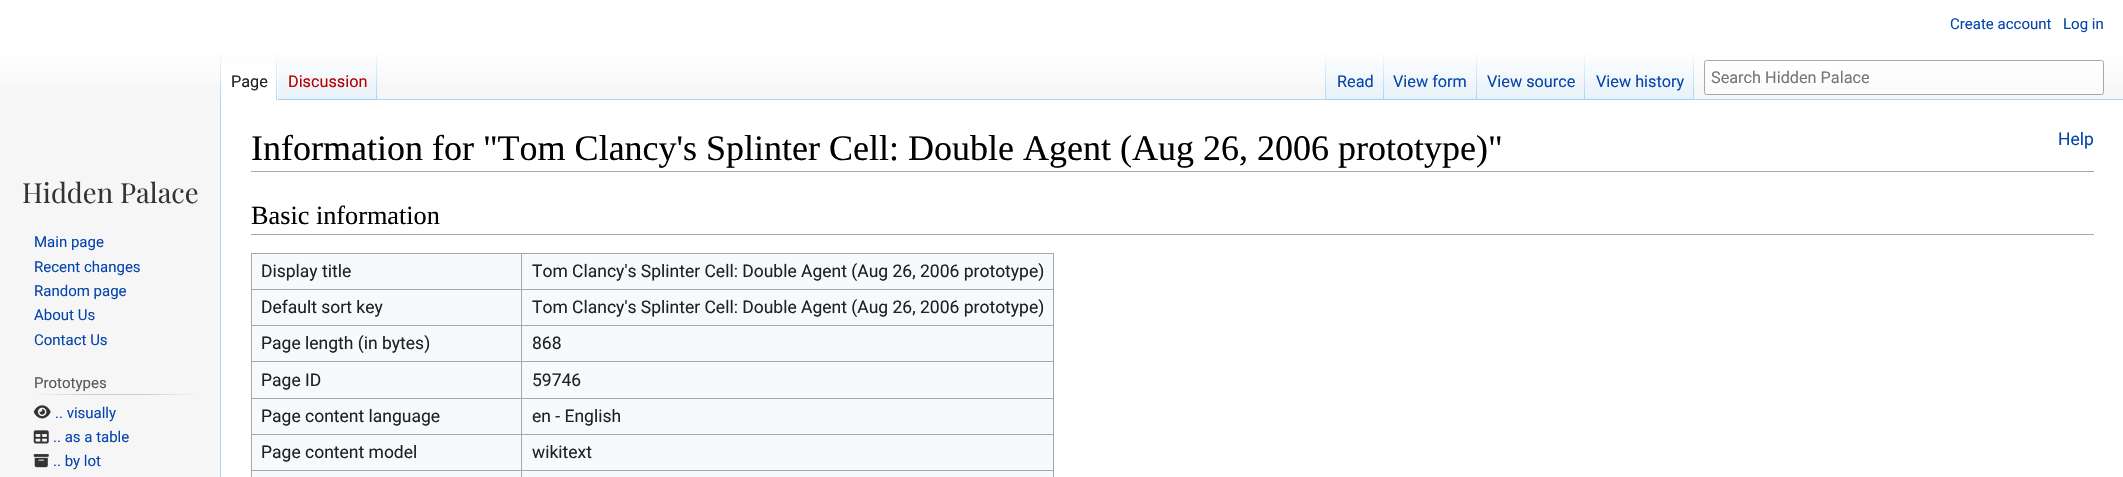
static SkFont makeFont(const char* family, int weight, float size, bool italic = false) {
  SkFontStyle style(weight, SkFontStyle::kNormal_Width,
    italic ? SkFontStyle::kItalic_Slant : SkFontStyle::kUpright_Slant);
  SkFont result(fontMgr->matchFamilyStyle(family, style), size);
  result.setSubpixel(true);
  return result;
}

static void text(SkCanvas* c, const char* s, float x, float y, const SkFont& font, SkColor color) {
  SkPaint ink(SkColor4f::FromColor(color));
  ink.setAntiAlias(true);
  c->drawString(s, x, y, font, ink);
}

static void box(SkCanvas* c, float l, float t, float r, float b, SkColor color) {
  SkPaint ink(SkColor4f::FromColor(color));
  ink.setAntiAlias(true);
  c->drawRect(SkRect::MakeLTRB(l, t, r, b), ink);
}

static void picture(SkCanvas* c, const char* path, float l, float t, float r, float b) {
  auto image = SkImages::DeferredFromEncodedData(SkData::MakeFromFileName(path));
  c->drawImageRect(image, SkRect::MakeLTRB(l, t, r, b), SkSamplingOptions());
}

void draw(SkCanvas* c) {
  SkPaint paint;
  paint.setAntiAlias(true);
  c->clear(0xfff6f6f6);
  {
    const SkColor colors[] = {0xffffffff, 0xfff6f6f6};
    const float stops[] = {0.5f, 1};
    const SkPoint ends[] = {{1062, 0}, {1062, 100}};
    paint.setShader(SkGradientShader::MakeLinear(ends, colors, stops, 2, SkTileMode::kClamp));
    paint.setAlpha(255);
  }
  c->drawRect(SkRect::MakeLTRB(0, 0, 2123, 86), paint);
  SkFont face1 = makeFont("Roboto", 400, 15);
  text(c, "Create account", 1950, 29, face1, 0xff0645ad);
  text(c, "Log in", 2063, 29, face1, 0xff0645ad);
  box(c, 220, 99, 221, 477, 0xffa7d7f9);
  {
    const SkColor colors[] = {0x00a7d7f9, 0xffa7d7f9};
    const float stops[] = {0, 1};
    const SkPoint ends[] = {{221, 50}, {221, 100}};
    paint.setShader(SkGradientShader::MakeLinear(ends, colors, stops, 2, SkTileMode::kClamp));
    paint.setAlpha(255);
  }
  c->drawRect(SkRect::MakeLTRB(220, 50, 221, 100), paint);
  box(c, 221, 64, 278, 100, 0xffffffff);
  {
    const SkColor colors[] = {0xffffffff, 0xffa7d7f9};
    const float stops[] = {0, 1};
    const SkPoint ends[] = {{277, 50}, {277, 100}};
    paint.setShader(SkGradientShader::MakeLinear(ends, colors, stops, 2, SkTileMode::kClamp));
    paint.setAlpha(255);
  }
  c->drawRect(SkRect::MakeLTRB(276, 50, 277, 100), paint);
  SkFont face2 = makeFont("Roboto", 400, 16.25f);
  text(c, "Page", 231, 87, face2, 0xff202122);
  {
    const SkColor colors[] = {0xff77c1f6, 0xffe8f2f8, 0xffffffff};
    const float stops[] = {0, 0.03f, 1};
    const SkPoint ends[] = {{328, 100}, {328, 50}};
    paint.setShader(SkGradientShader::MakeLinear(ends, colors, stops, 3, SkTileMode::kClamp));
    paint.setAlpha(255);
  }
  c->drawRect(SkRect::MakeLTRB(278, 57, 378, 100), paint);
  {
    const SkColor colors[] = {0x00a7d7f9, 0xffa7d7f9};
    const float stops[] = {0, 1};
    const SkPoint ends[] = {{377, 50}, {377, 100}};
    paint.setShader(SkGradientShader::MakeLinear(ends, colors, stops, 2, SkTileMode::kClamp));
    paint.setAlpha(255);
  }
  c->drawRect(SkRect::MakeLTRB(376, 50, 377, 100), paint);
  text(c, "Discussion", 288, 87, face2, 0xffba0000);
  box(c, 378, 99, 2123, 100, 0xffa7d7f9);
  {
    const SkColor colors[] = {0x00a7d7f9, 0xffa7d7f9};
    const float stops[] = {0, 1};
    const SkPoint ends[] = {{1326, 50}, {1326, 100}};
    paint.setShader(SkGradientShader::MakeLinear(ends, colors, stops, 2, SkTileMode::kClamp));
    paint.setAlpha(255);
  }
  c->drawRect(SkRect::MakeLTRB(1325, 50, 1326, 100), paint);
  {
    const SkColor colors[] = {0xff77c1f6, 0xffe8f2f8, 0xffffffff};
    const float stops[] = {0, 0.03f, 1};
    const SkPoint ends[] = {{1355, 100}, {1355, 50}};
    paint.setShader(SkGradientShader::MakeLinear(ends, colors, stops, 3, SkTileMode::kClamp));
    paint.setAlpha(255);
  }
  c->drawRect(SkRect::MakeLTRB(1326, 57, 1384, 100), paint);
  {
    const SkColor colors[] = {0x00a7d7f9, 0xffa7d7f9};
    const float stops[] = {0, 1};
    const SkPoint ends[] = {{1383, 50}, {1383, 100}};
    paint.setShader(SkGradientShader::MakeLinear(ends, colors, stops, 2, SkTileMode::kClamp));
    paint.setAlpha(255);
  }
  c->drawRect(SkRect::MakeLTRB(1383, 50, 1384, 100), paint);
  text(c, "Read", 1337, 87, face2, 0xff0645ad);
  {
    const SkColor colors[] = {0xff77c1f6, 0xffe8f2f8, 0xffffffff};
    const float stops[] = {0, 0.03f, 1};
    const SkPoint ends[] = {{1431, 100}, {1431, 50}};
    paint.setShader(SkGradientShader::MakeLinear(ends, colors, stops, 3, SkTileMode::kClamp));
    paint.setAlpha(255);
  }
  c->drawRect(SkRect::MakeLTRB(1384, 57, 1478, 100), paint);
  {
    const SkColor colors[] = {0x00a7d7f9, 0xffa7d7f9};
    const float stops[] = {0, 1};
    const SkPoint ends[] = {{1477, 50}, {1477, 100}};
    paint.setShader(SkGradientShader::MakeLinear(ends, colors, stops, 2, SkTileMode::kClamp));
    paint.setAlpha(255);
  }
  c->drawRect(SkRect::MakeLTRB(1476, 50, 1477, 100), paint);
  text(c, "View form", 1393, 87, face2, 0xff0645ad);
  {
    const SkColor colors[] = {0xff77c1f6, 0xffe8f2f8, 0xffffffff};
    const float stops[] = {0, 0.03f, 1};
    const SkPoint ends[] = {{1531, 100}, {1531, 50}};
    paint.setShader(SkGradientShader::MakeLinear(ends, colors, stops, 3, SkTileMode::kClamp));
    paint.setAlpha(255);
  }
  c->drawRect(SkRect::MakeLTRB(1478, 57, 1585, 100), paint);
  {
    const SkColor colors[] = {0x00a7d7f9, 0xffa7d7f9};
    const float stops[] = {0, 1};
    const SkPoint ends[] = {{1584, 50}, {1584, 100}};
    paint.setShader(SkGradientShader::MakeLinear(ends, colors, stops, 2, SkTileMode::kClamp));
    paint.setAlpha(255);
  }
  c->drawRect(SkRect::MakeLTRB(1584, 50, 1585, 100), paint);
  text(c, "View source", 1487, 87, face2, 0xff0645ad);
  {
    const SkColor colors[] = {0xff77c1f6, 0xffe8f2f8, 0xffffffff};
    const float stops[] = {0, 0.03f, 1};
    const SkPoint ends[] = {{1639, 100}, {1639, 50}};
    paint.setShader(SkGradientShader::MakeLinear(ends, colors, stops, 3, SkTileMode::kClamp));
    paint.setAlpha(255);
  }
  c->drawRect(SkRect::MakeLTRB(1585, 57, 1694, 100), paint);
  {
    const SkColor colors[] = {0x00a7d7f9, 0xffa7d7f9};
    const float stops[] = {0, 1};
    const SkPoint ends[] = {{1693, 50}, {1693, 100}};
    paint.setShader(SkGradientShader::MakeLinear(ends, colors, stops, 2, SkTileMode::kClamp));
    paint.setAlpha(255);
  }
  c->drawRect(SkRect::MakeLTRB(1693, 50, 1694, 100), paint);
  text(c, "View history", 1596, 87, face2, 0xff0645ad);
  paint.setShader(nullptr);
  paint.setColor(0x80ffffff);
  c->drawRoundRect(SkRect::MakeLTRB(1704.5f, 60.5f, 2103.5f, 94.5f), 2, 2, paint);
  paint.setStyle(SkPaint::kStroke_Style);
  paint.setStrokeWidth(1);
  paint.setColor(0xffa2a9b1);
  c->drawRoundRect(SkRect::MakeLTRB(1704.5f, 60.5f, 2103.5f, 94.5f), 2, 2, paint);
  text(c, "Search Hidden Palace", 1711, 83, face2, 0xff72777d);
  SkFont face3 = makeFont("Playfair Display", 400, 27.5f);
  text(c, "Hidden Palace", 22, 203, face3, 0xff333333);
  text(c, "Main page", 34, 247, face1, 0xff0645ad);
  text(c, "Recent changes", 34, 272, face1, 0xff0645ad);
  text(c, "Random page", 34, 296, face1, 0xff0645ad);
  text(c, "About Us", 34, 320, face1, 0xff0645ad);
  text(c, "Contact Us", 34, 345, face1, 0xff0645ad);
  paint.setStyle(SkPaint::kFill_Style);
  {
    const SkColor colors[] = {0xfff6f6f6, 0xffc8ccd1, 0xffc8ccd1, 0xfff6f6f6};
    const float stops[] = {0, 0.33f, 0.66f, 1};
    const SkPoint ends[] = {{34, 394}, {198, 394}};
    paint.setShader(SkGradientShader::MakeLinear(ends, colors, stops, 4, SkTileMode::kClamp));
    paint.setAlpha(255);
  }
  c->drawRect(SkRect::MakeLTRB(34, 394, 198, 395), paint);
  text(c, "Prototypes", 34, 388, face1, 0xff54595d);
  picture(c, "img_01.png", 33, 405, 51, 419);
  text(c, ".. visually", 55, 418, face1, 0xff0645ad);
  picture(c, "img_02.png", 33, 430, 49, 444);
  text(c, ".. as a table", 53, 442, face1, 0xff0645ad);
  picture(c, "img_03.png", 33, 454, 49, 468);
  text(c, ".. by lot", 53, 466, face1, 0xff0645ad);
  box(c, 221, 100, 2123, 477, 0xffffffff);
  box(c, 251, 171, 2094, 172, 0xffa2a9b1);
  SkFont face4 = makeFont("Liberation Serif", 400, 36);
  text(c, "Information for \"Tom Clancy's Splinter Cell: Double Agent (Aug 26, 2006 prototype)\"", 251, 160, face4, 0xff000000);
  SkFont face5 = makeFont("Roboto", 400, 17.5f);
  text(c, "Help", 2058, 145, face5, 0xff0645ad);
  box(c, 251, 234, 2094, 235, 0xffa2a9b1);
  SkFont face6 = makeFont("Liberation Serif", 400, 26.25f);
  text(c, "Basic information", 251, 224, face6, 0xff000000);
  box(c, 252, 254, 1053, 477, 0xfff8f9fa);
  box(c, 251, 253, 1054, 254, 0xffa2a9b1);
  box(c, 1053, 253, 1054, 477, 0xffa2a9b1);
  box(c, 251, 253, 252, 477, 0xffa2a9b1);
  text(c, "Display title", 261, 277, face5, 0xff202122);
  box(c, 521, 289, 1054, 290, 0xffa2a9b1);
  box(c, 521, 325, 1054, 326, 0xffa2a9b1);
  box(c, 521, 361, 1054, 362, 0xffa2a9b1);
  box(c, 521, 398, 1054, 399, 0xffa2a9b1);
  box(c, 521, 434, 1054, 435, 0xffa2a9b1);
  box(c, 521, 470, 1054, 471, 0xffa2a9b1);
  box(c, 521, 470, 522, 477, 0xffa2a9b1);
  box(c, 251, 470, 523, 471, 0xffa2a9b1);
  box(c, 521, 434, 522, 471, 0xffa2a9b1);
  box(c, 251, 434, 523, 435, 0xffa2a9b1);
  box(c, 521, 398, 522, 435, 0xffa2a9b1);
  box(c, 251, 398, 523, 399, 0xffa2a9b1);
  box(c, 521, 361, 522, 399, 0xffa2a9b1);
  box(c, 251, 361, 523, 362, 0xffa2a9b1);
  box(c, 521, 325, 522, 363, 0xffa2a9b1);
  box(c, 251, 325, 523, 326, 0xffa2a9b1);
  box(c, 521, 289, 522, 326, 0xffa2a9b1);
  box(c, 251, 289, 523, 290, 0xffa2a9b1);
  box(c, 521, 253, 522, 290, 0xffa2a9b1);
  text(c, "Tom Clancy's Splinter Cell: Double Agent (Aug 26, 2006 prototype)", 532, 277, face5, 0xff202122);
  text(c, "Default sort key", 261, 313, face5, 0xff202122);
  text(c, "Tom Clancy's Splinter Cell: Double Agent (Aug 26, 2006 prototype)", 532, 313, face5, 0xff202122);
  text(c, "Page length (in bytes)", 261, 349, face5, 0xff202122);
  text(c, "868", 532, 349, face5, 0xff202122);
  text(c, "Page ID", 261, 386, face5, 0xff202122);
  text(c, "59746", 532, 386, face5, 0xff202122);
  text(c, "Page content language", 261, 422, face5, 0xff202122);
  text(c, "en - English", 532, 422, face5, 0xff202122);
  text(c, "Page content model", 261, 458, face5, 0xff202122);
  text(c, "wikitext", 532, 458, face5, 0xff202122);
}
